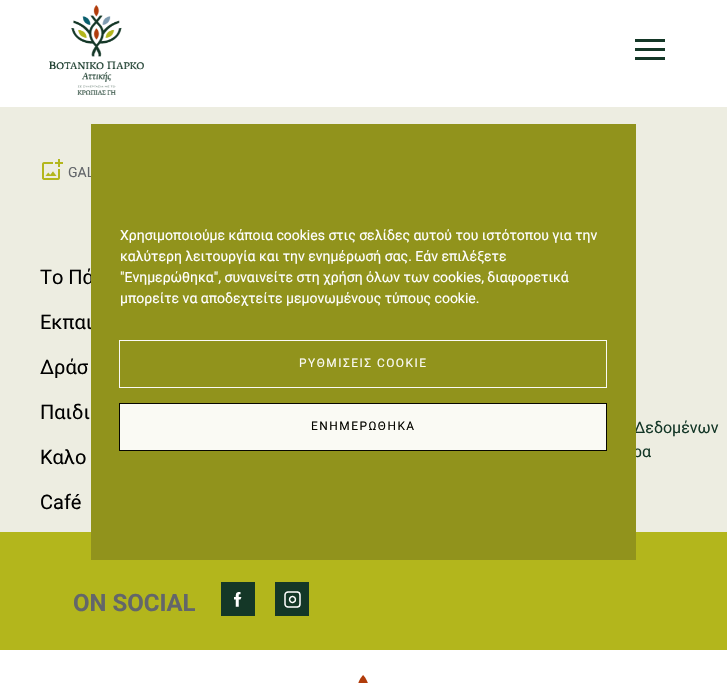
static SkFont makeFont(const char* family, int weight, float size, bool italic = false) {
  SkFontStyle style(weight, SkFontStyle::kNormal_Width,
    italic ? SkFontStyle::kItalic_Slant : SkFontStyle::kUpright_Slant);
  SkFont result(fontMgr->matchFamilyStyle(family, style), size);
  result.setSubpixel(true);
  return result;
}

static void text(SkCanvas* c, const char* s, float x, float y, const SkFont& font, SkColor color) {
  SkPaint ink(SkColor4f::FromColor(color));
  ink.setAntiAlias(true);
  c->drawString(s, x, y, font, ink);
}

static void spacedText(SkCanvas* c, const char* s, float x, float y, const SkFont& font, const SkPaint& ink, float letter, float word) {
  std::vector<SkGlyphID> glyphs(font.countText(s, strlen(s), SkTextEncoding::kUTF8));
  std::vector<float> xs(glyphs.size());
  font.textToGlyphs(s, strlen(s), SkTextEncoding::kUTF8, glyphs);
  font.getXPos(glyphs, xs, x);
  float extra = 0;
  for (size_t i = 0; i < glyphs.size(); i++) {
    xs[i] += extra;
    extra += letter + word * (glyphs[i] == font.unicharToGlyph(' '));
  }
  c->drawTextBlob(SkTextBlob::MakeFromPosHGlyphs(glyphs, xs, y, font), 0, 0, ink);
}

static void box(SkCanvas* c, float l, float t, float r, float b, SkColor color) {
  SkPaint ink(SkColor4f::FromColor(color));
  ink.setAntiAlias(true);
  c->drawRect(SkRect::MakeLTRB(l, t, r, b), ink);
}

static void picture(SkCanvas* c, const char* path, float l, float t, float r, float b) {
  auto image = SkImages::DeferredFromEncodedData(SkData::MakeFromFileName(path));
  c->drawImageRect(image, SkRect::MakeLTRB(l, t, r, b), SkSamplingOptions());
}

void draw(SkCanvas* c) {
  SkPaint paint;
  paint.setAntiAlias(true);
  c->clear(0xffffffff);
  picture(c, "img_01.png", 49, 5, 144, 95);
  box(c, 635, 39, 665, 42, 0xff143727);
  box(c, 635, 48, 665, 51, 0xff143727);
  box(c, 635, 57, 665, 60, 0xff143727);
  box(c, 0, 107, 727, 532, 0xffedede1);
  picture(c, "img_02.png", 42, 159, 63, 180);
  SkFont face1 = makeFont("Roboto", 400, 14);
  text(c, "GAL", 68, 177, face1, 0xff63666a);
  SkFont face2 = makeFont("Roboto", 400, 20);
  text(c, "Το Πά", 40, 284, face2, 0xff000000);
  text(c, "Εκπαι", 40, 329, face2, 0xff000000);
  SkFont face3 = makeFont("Roboto", 400, 16);
  text(c, "Δεδομένων", 634, 433, face3, 0xff143727);
  text(c, "ρα", 633, 457, face3, 0xff143727);
  box(c, 0, 532, 727, 650, 0xffb3b61c);
  box(c, 91, 124, 636, 560, 0xff91931c);
  text(c, "Χρησιμοποιούμε κάποια cookies στις σελίδες αυτού του ιστότοπου για την", 120, 240, face1, 0xffffffff);
  text(c, "καλύτερη λειτουργία και την ενημέρωσή σας. Εάν επιλέξετε", 120, 261, face1, 0xffffffff);
  text(c, "\"Ενημερώθηκα\", συναινείτε στη χρήση όλων των cookies, διαφορετικά", 120, 282, face1, 0xffffffff);
  text(c, "μπορείτε να αποδεχτείτε μεμονωμένους τύπους cookie.", 120, 303, face1, 0xffffffff);
  paint.setStyle(SkPaint::kStroke_Style);
  paint.setStrokeWidth(1);
  paint.setColor(0xfffafaf4);
  c->drawRect(SkRect::MakeLTRB(119.5f, 340.5f, 606.5f, 387.5f), paint);
  SkFont face4 = makeFont("Roboto", 400, 11.9f);
  paint.setStyle(SkPaint::kFill_Style);
  spacedText(c, "ΡΥΘΜΙΣΕΙΣ COOKIE", 299, 367, face4, paint, 1.5f, 0);
  c->drawRect(SkRect::MakeLTRB(119.5f, 403.5f, 606.5f, 450.5f), paint);
  paint.setStyle(SkPaint::kStroke_Style);
  paint.setColor(0xff070701);
  c->drawRect(SkRect::MakeLTRB(119.5f, 403.5f, 606.5f, 450.5f), paint);
  paint.setStyle(SkPaint::kFill_Style);
  spacedText(c, "ΕΝΗΜΕΡΩΘΗΚΑ", 311, 430, face4, paint, 1.5f, 0);
  text(c, "Δράσ", 40, 374, face2, 0xff000000);
  text(c, "Παιδι", 40, 419, face2, 0xff000000);
  text(c, "Καλο", 40, 464, face2, 0xff000000);
  text(c, "Café", 40, 509, face2, 0xff000000);
  SkFont face5 = makeFont("Roboto", 700, 24);
  text(c, "ON SOCIAL", 73, 611, face5, 0xff63666a);
  picture(c, "img_03.png", 221, 582, 255, 616);
  picture(c, "img_04.png", 275, 582, 309, 616);
  picture(c, "img_05.png", 358, 675, 368, 683);
}
